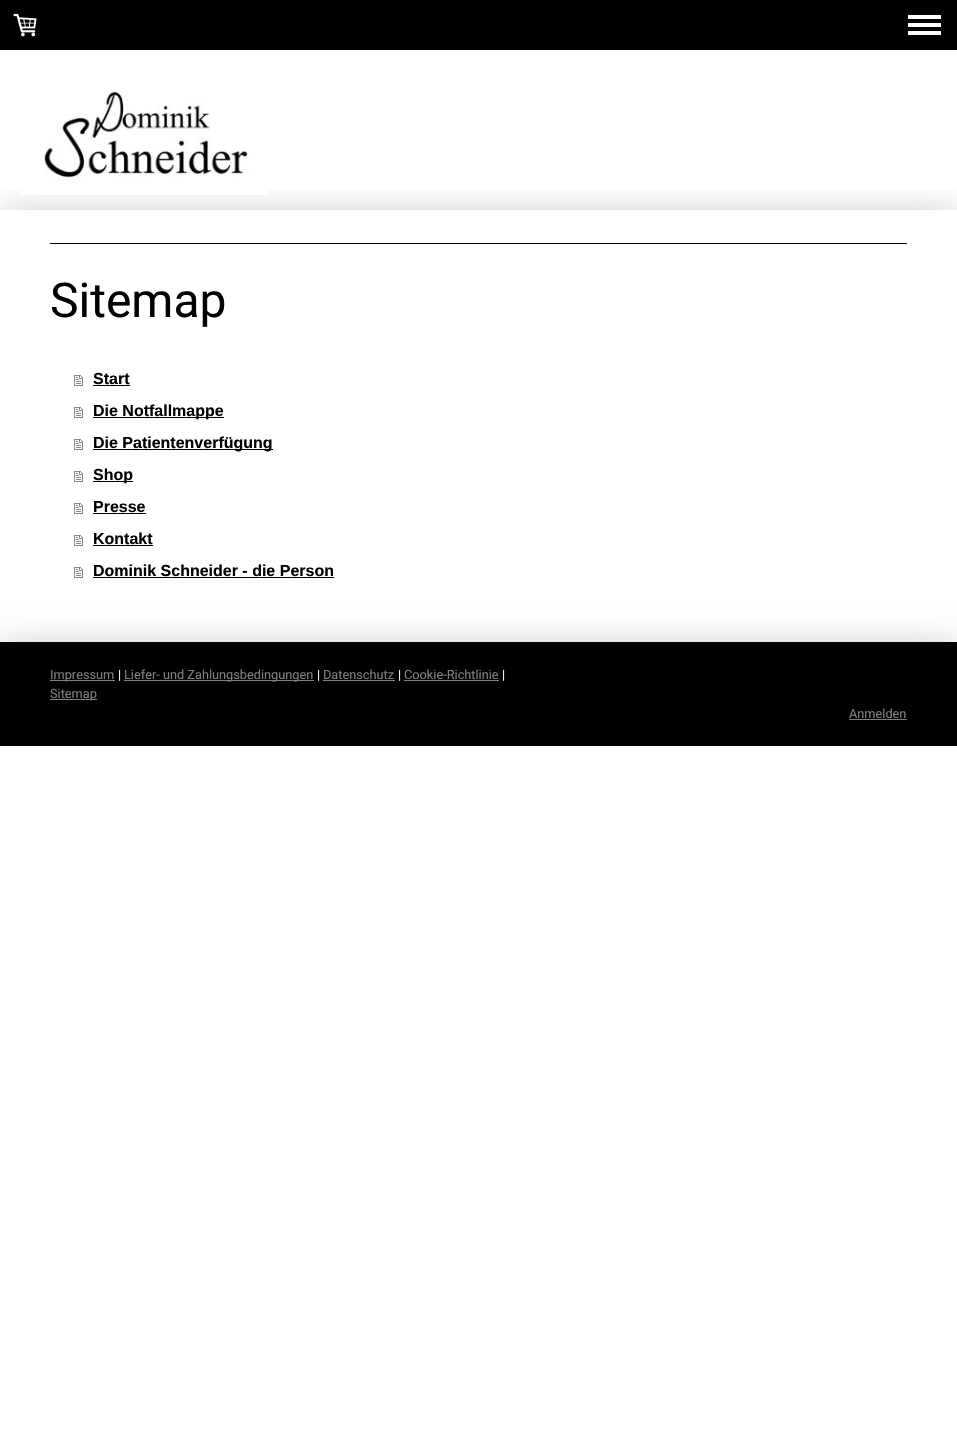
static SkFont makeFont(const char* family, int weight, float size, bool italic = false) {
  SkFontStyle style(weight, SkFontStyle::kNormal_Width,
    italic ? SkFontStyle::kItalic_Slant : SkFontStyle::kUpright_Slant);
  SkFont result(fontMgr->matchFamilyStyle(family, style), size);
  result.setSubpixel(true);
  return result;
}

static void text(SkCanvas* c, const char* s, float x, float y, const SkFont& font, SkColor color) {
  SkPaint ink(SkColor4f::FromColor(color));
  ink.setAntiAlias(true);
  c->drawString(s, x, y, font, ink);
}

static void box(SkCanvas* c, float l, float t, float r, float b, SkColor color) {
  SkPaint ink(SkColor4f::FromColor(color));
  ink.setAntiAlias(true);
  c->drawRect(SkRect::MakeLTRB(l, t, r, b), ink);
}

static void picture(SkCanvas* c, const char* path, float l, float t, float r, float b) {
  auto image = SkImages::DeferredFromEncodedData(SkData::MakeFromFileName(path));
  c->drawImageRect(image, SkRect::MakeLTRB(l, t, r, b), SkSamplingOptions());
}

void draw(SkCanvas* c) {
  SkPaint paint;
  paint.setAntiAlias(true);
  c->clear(0xffffffff);
  box(c, 0, 0, 957, 50, 0xff000000);
  picture(c, "img_01.png", 13, 14, 37, 37);
  box(c, 908, 23, 941, 27, 0xffffffff);
  box(c, 908, 15, 941, 19, 0xffffffff);
  box(c, 908, 31, 941, 35, 0xffffffff);
  c->save();
  c->clipRect(SkRect::MakeLTRB(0, 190, 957, 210));
  paint.setColor(0x4d000000);
  paint.setMaskFilter(SkMaskFilter::MakeBlur(kNormal_SkBlurStyle, 20));
  c->drawRect(SkRect::MakeLTRB(0, 220, 957, 652), paint);
  paint.setMaskFilter(nullptr);
  c->restore();
  picture(c, "img_02.png", 20, 91, 268, 195);
  box(c, 50, 243, 907, 244, 0xff000000);
  SkFont face1 = makeFont("Roboto", 400, 48);
  text(c, "Sitemap", 50, 317, face1, 0xff000000);
  picture(c, "img_03.png", 74, 375, 83, 386);
  SkFont face2 = makeFont("Liberation Sans", 700, 16);
  text(c, "Start", 93, 384, face2, 0xff000000);
  box(c, 93, 385, 130, 386, 0xff000000);
  picture(c, "img_03.png", 74, 407, 83, 418);
  box(c, 93, 417, 224, 418, 0xff000000);
  text(c, "Die Notfallmappe", 93, 416, face2, 0xff000000);
  picture(c, "img_03.png", 74, 439, 83, 450);
  box(c, 93, 449, 273, 450, 0xff000000);
  text(c, "Die Patientenverfügung", 93, 448, face2, 0xff000000);
  picture(c, "img_03.png", 74, 471, 83, 482);
  box(c, 93, 481, 133, 482, 0xff000000);
  text(c, "Shop", 93, 480, face2, 0xff000000);
  picture(c, "img_03.png", 74, 503, 83, 514);
  text(c, "Presse", 93, 512, face2, 0xff000000);
  box(c, 93, 513, 146, 514, 0xff000000);
  picture(c, "img_03.png", 74, 535, 83, 546);
  text(c, "Kontakt", 93, 544, face2, 0xff000000);
  box(c, 93, 545, 153, 546, 0xff000000);
  picture(c, "img_03.png", 74, 567, 83, 578);
  text(c, "Dominik Schneider - die Person", 93, 576, face2, 0xff000000);
  box(c, 93, 577, 334, 578, 0xff000000);
  c->save();
  c->clipRect(SkRect::MakeLTRB(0, 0, 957, 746));
  paint.setMaskFilter(SkMaskFilter::MakeBlur(kNormal_SkBlurStyle, 20));
  c->drawRect(SkRect::MakeLTRB(0, 652, 957, 756), paint);
  paint.setMaskFilter(nullptr);
  c->restore();
  box(c, 0, 642, 957, 746, 0xff000000);
  box(c, 50, 680, 115, 681, 0xff808080);
  SkFont face3 = makeFont("Roboto", 400, 12.75f);
  text(c, "Impressum", 50, 679, face3, 0xff808080);
  text(c, "|", 118, 679, face3, 0xffffffff);
  box(c, 124, 680, 314, 681, 0xff808080);
  text(c, "Liefer- und Zahlungsbedingungen", 124, 679, face3, 0xff808080);
  text(c, "|", 317, 679, face3, 0xffffffff);
  text(c, "Datenschutz", 323, 679, face3, 0xff808080);
  box(c, 323, 680, 395, 681, 0xff808080);
  text(c, "|", 398, 679, face3, 0xffffffff);
  text(c, "Cookie-Richtlinie", 404, 679, face3, 0xff808080);
  box(c, 404, 680, 499, 681, 0xff808080);
  text(c, "|", 502, 679, face3, 0xffffffff);
  box(c, 50, 699, 97, 700, 0xff808080);
  text(c, "Sitemap", 50, 698, face3, 0xff808080);
  text(c, "Anmelden", 849, 718, face3, 0xff808080);
  box(c, 849, 719, 907, 720, 0xff808080);
}
